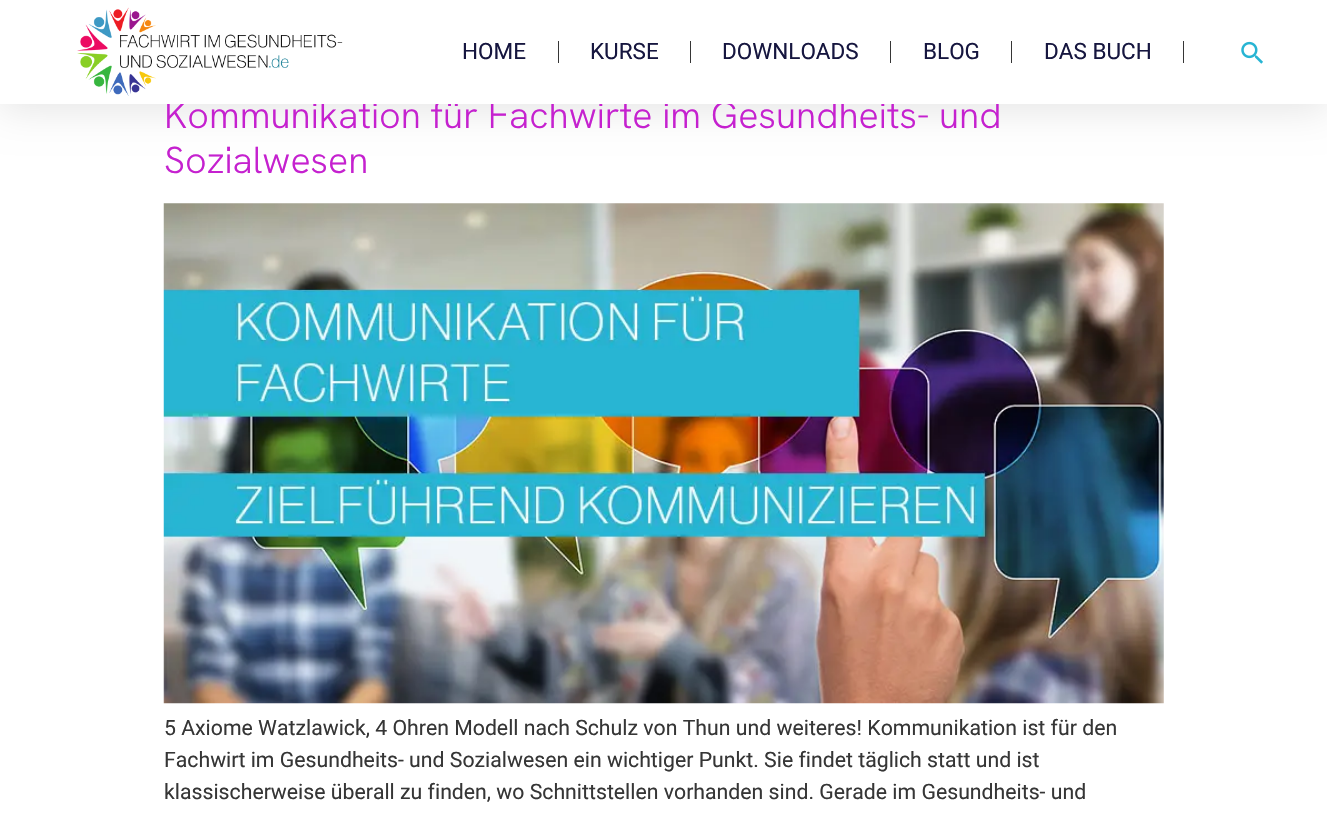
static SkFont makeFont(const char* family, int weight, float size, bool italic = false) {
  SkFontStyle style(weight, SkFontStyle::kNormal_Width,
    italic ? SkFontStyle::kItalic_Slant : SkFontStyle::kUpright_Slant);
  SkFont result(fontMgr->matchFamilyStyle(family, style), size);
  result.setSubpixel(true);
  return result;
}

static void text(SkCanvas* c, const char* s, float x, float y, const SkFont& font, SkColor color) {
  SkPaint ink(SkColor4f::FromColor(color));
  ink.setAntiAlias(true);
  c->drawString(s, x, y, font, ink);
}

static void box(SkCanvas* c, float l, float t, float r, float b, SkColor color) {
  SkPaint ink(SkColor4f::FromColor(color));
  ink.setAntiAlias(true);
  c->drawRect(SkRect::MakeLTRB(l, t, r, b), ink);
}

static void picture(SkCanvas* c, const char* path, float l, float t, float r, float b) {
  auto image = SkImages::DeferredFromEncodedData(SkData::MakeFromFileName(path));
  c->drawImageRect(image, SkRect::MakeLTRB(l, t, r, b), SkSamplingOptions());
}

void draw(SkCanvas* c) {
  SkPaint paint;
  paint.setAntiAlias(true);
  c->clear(0xffffffff);
  paint.setColor(0x1a000000);
  paint.setMaskFilter(SkMaskFilter::MakeBlur(kNormal_SkBlurStyle, 19));
  c->drawRect(SkRect::MakeLTRB(0, 6, 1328, 110), paint);
  paint.setMaskFilter(nullptr);
  SkFont face1 = makeFont("Hanken Grotesk", 300, 37.5f);
  text(c, "Kommunikation für Fachwirte im Gesundheits- und", 164, 128, face1, 0xffc521cf);
  box(c, 0, 0, 1327, 104, 0xffffffff);
  picture(c, "img_01.png", 77, 7, 343, 96);
  SkFont face2 = makeFont("Roboto", 400, 22.5f);
  text(c, "HOME", 462, 59, face2, 0xff16163f);
  box(c, 558, 41, 559, 63, 0xff363636);
  text(c, "KURSE", 590, 59, face2, 0xff16163f);
  box(c, 690, 41, 691, 63, 0xff363636);
  text(c, "DOWNLOADS", 722, 59, face2, 0xff16163f);
  box(c, 890, 41, 891, 63, 0xff363636);
  text(c, "BLOG", 923, 59, face2, 0xff16163f);
  box(c, 1011, 41, 1012, 63, 0xff363636);
  text(c, "DAS BUCH", 1044, 59, face2, 0xff16163f);
  box(c, 1183, 41, 1184, 63, 0xff363636);
  picture(c, "img_02.png", 1241, 41, 1263, 64);
  text(c, "Sozialwesen", 164, 173, face1, 0xffc521cf);
  picture(c, "img_03.png", 163, 203, 1164, 704);
  SkFont face3 = makeFont("Roboto", 400, 21.25f);
  text(c, "5 Axiome Watzlawick, 4 Ohren Modell nach Schulz von Thun und weiteres! Kommunikation ist für den", 164, 735, face3, 0xff363636);
  text(c, "Fachwirt im Gesundheits- und Sozialwesen ein wichtiger Punkt. Sie findet täglich statt und ist", 164, 767, face3, 0xff363636);
  text(c, "klassischerweise überall zu finden, wo Schnittstellen vorhanden sind. Gerade im Gesundheits- und", 164, 799, face3, 0xff363636);
}
